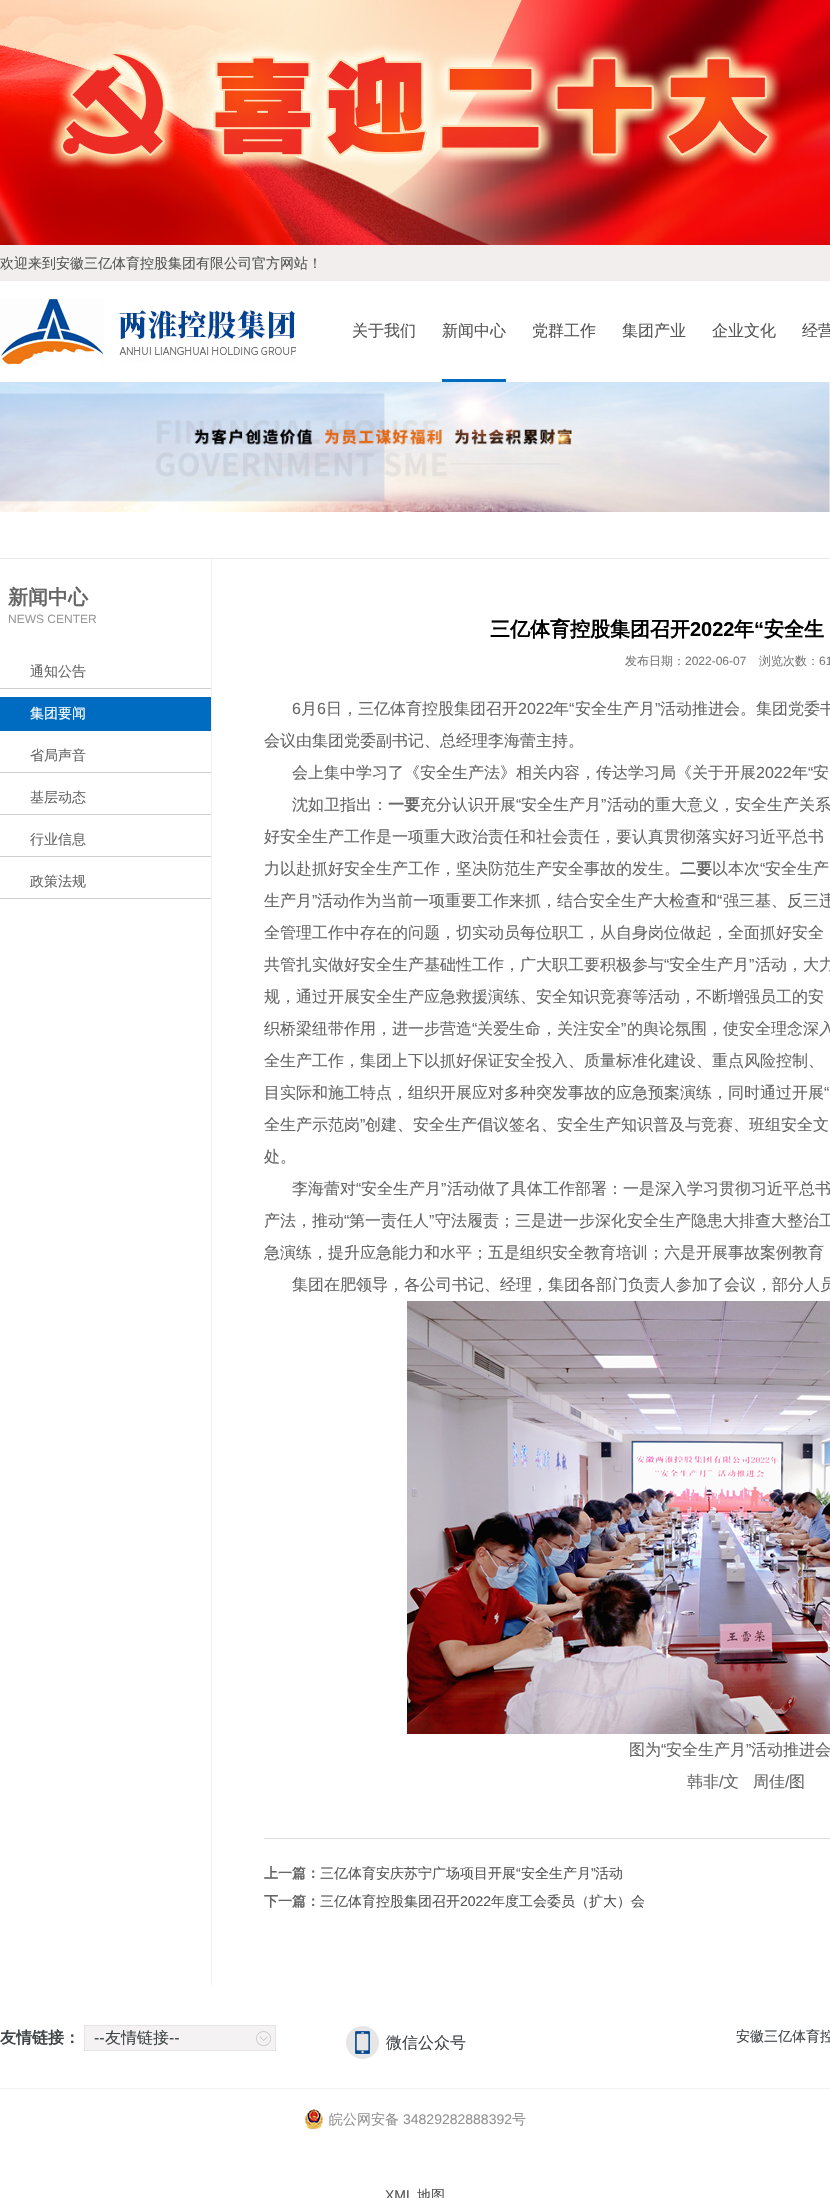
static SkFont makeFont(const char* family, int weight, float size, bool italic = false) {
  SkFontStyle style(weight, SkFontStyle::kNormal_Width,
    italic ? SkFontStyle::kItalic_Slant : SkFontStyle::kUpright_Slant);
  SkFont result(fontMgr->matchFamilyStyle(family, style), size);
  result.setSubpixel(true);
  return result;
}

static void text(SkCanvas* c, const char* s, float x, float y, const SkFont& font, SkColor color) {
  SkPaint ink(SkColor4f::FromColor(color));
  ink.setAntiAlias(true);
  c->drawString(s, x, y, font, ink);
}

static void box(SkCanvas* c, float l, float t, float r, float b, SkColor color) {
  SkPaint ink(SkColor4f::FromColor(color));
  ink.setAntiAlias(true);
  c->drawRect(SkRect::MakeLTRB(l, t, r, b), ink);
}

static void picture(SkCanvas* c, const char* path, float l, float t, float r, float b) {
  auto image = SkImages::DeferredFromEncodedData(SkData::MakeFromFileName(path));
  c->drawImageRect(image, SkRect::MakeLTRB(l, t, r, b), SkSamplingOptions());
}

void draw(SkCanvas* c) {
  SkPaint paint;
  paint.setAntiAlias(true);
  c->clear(0xffffffff);
  picture(c, "img_01.png", 0, 0, 830, 245);
  box(c, 0, 245, 830, 281, 0xfff2eeee);
  SkFont face1 = makeFont("WenQuanYi Zen Hei", 500, 14);
  text(c, "欢迎来到安徽三亿体育控股集团有限公司官方网站！", 0, 268, face1, 0xff555555);
  picture(c, "img_02.png", 0, 299, 296, 365);
  SkFont face2 = makeFont("WenQuanYi Zen Hei", 500, 16);
  text(c, "关于我们", 352, 336, face2, 0xff555555);
  text(c, "新闻中心", 442, 336, face2, 0xff555555);
  box(c, 442, 379, 506, 382, 0xff006cc1);
  text(c, "党群工作", 532, 336, face2, 0xff555555);
  text(c, "集团产业", 622, 336, face2, 0xff555555);
  text(c, "企业文化", 712, 336, face2, 0xff555555);
  text(c, "经营", 802, 336, face2, 0xff555555);
  picture(c, "img_03.png", 0, 382, 830, 512);
  box(c, 0, 558, 830, 559, 0xffeaeaea);
  box(c, 211, 559, 212, 1985, 0xfff2f2f2);
  SkFont face3 = makeFont("WenQuanYi Zen Hei", 700, 20);
  text(c, "新闻中心", 8, 604, face3, 0xff666666);
  SkFont face4 = makeFont("Liberation Sans", 400, 12);
  text(c, "NEWS CENTER", 8, 623, face4, 0xff9a9a9a);
  box(c, 0, 688, 211, 689, 0xffcfcfcf);
  text(c, "通知公告", 30, 676, face1, 0xff666666);
  box(c, 0, 697, 211, 731, 0xff006cc1);
  text(c, "集团要闻", 30, 718, face1, 0xffffffff);
  box(c, 0, 772, 211, 773, 0xffcfcfcf);
  text(c, "省局声音", 30, 760, face1, 0xff666666);
  box(c, 0, 814, 211, 815, 0xffcfcfcf);
  text(c, "基层动态", 30, 802, face1, 0xff666666);
  box(c, 0, 856, 211, 857, 0xffcfcfcf);
  text(c, "行业信息", 30, 844, face1, 0xff666666);
  box(c, 0, 898, 211, 899, 0xffcfcfcf);
  text(c, "政策法规", 30, 886, face1, 0xff666666);
  text(c, "三亿体育控股集团召开", 490, 636, face3, 0xff000000);
  SkFont face5 = makeFont("Liberation Sans", 700, 20);
  text(c, "2022", 690, 636, face5, 0xff000000);
  text(c, "年", 734, 636, face3, 0xff000000);
  text(c, "“", 754, 636, face5, 0xff000000);
  text(c, "安全生", 764, 636, face3, 0xff000000);
  SkFont face6 = makeFont("WenQuanYi Zen Hei", 500, 12);
  text(c, "发布日期：", 625, 665, face6, 0xff797979);
  text(c, "2022-06-07", 685, 665, face4, 0xff797979);
  text(c, "浏览次数：", 759, 665, face6, 0xff797979);
  text(c, "61", 819, 665, face4, 0xff797979);
  SkFont face7 = makeFont("Liberation Sans", 400, 16);
  text(c, "6", 292, 714, face7, 0xff666666);
  text(c, "月", 301, 714, face2, 0xff666666);
  text(c, "6", 317, 714, face7, 0xff666666);
  text(c, "日，三亿体育控股集团召开", 326, 714, face2, 0xff666666);
  text(c, "2022", 518, 714, face7, 0xff666666);
  text(c, "年", 553, 714, face2, 0xff666666);
  text(c, "“", 569, 714, face7, 0xff666666);
  text(c, "安全生产月", 575, 714, face2, 0xff666666);
  text(c, "”", 655, 714, face7, 0xff666666);
  text(c, "活动推进会。集团党委书", 660, 714, face2, 0xff666666);
  text(c, "会议由集团党委副书记、总经理李海蕾主持。", 264, 746, face2, 0xff666666);
  text(c, "会上集中学习了《安全生产法》相关内容，传达学习局《关于开展", 292, 778, face2, 0xff666666);
  text(c, "2022", 756, 778, face7, 0xff666666);
  text(c, "年", 792, 778, face2, 0xff666666);
  text(c, "“", 808, 778, face7, 0xff666666);
  text(c, "安", 813, 778, face2, 0xff666666);
  text(c, "沈如卫指出：", 292, 810, face2, 0xff666666);
  SkFont face8 = makeFont("WenQuanYi Zen Hei", 700, 16);
  text(c, "一要", 388, 810, face8, 0xff666666);
  text(c, "充分认识开展", 420, 810, face2, 0xff666666);
  text(c, "“", 516, 810, face7, 0xff666666);
  text(c, "安全生产月", 521, 810, face2, 0xff666666);
  text(c, "”", 601, 810, face7, 0xff666666);
  text(c, "活动的重大意义，安全生产关系", 607, 810, face2, 0xff666666);
  text(c, "好安全生产工作是一项重大政治责任和社会责任，要认真贯彻落实好习近平总书", 264, 842, face2, 0xff666666);
  text(c, "力以赴抓好安全生产工作，坚决防范生产安全事故的发生。", 264, 874, face2, 0xff666666);
  text(c, "二要", 680, 874, face8, 0xff666666);
  text(c, "以本次", 712, 874, face2, 0xff666666);
  text(c, "“", 760, 874, face7, 0xff666666);
  text(c, "安全生产", 765, 874, face2, 0xff666666);
  text(c, "生产月", 264, 906, face2, 0xff666666);
  text(c, "”", 312, 906, face7, 0xff666666);
  text(c, "活动作为当前一项重要工作来抓，结合安全生产大检查和", 317, 906, face2, 0xff666666);
  text(c, "“", 717, 906, face7, 0xff666666);
  text(c, "强三基、反三违", 723, 906, face2, 0xff666666);
  text(c, "全管理工作中存在的问题，切实动员每位职工，从自身岗位做起，全面抓好安全", 264, 938, face2, 0xff666666);
  text(c, "共管扎实做好安全生产基础性工作，广大职工要积极参与", 264, 970, face2, 0xff666666);
  text(c, "“", 664, 970, face7, 0xff666666);
  text(c, "安全生产月", 669, 970, face2, 0xff666666);
  text(c, "”", 749, 970, face7, 0xff666666);
  text(c, "活动，大力", 755, 970, face2, 0xff666666);
  text(c, "规，通过开展安全生产应急救援演练、安全知识竞赛等活动，不断增强员工的安", 264, 1002, face2, 0xff666666);
  text(c, "织桥梁纽带作用，进一步营造", 264, 1034, face2, 0xff666666);
  text(c, "“", 472, 1034, face7, 0xff666666);
  text(c, "关爱生命，关注安全", 477, 1034, face2, 0xff666666);
  text(c, "”", 621, 1034, face7, 0xff666666);
  text(c, "的舆论氛围，使安全理念深入", 627, 1034, face2, 0xff666666);
  text(c, "全生产工作，集团上下以抓好保证安全投入、质量标准化建设、重点风险控制、", 264, 1066, face2, 0xff666666);
  text(c, "目实际和施工特点，组织开展应对多种突发事故的应急预案演练，同时通过开展", 264, 1098, face2, 0xff666666);
  text(c, "“", 824, 1098, face7, 0xff666666);
  text(c, "全生产示范岗", 264, 1130, face2, 0xff666666);
  text(c, "”", 360, 1130, face7, 0xff666666);
  text(c, "创建、安全生产倡议签名、安全生产知识普及与竞赛、班组安全文", 365, 1130, face2, 0xff666666);
  text(c, "处。", 264, 1162, face2, 0xff666666);
  text(c, "李海蕾对", 292, 1194, face2, 0xff666666);
  text(c, "“", 356, 1194, face7, 0xff666666);
  text(c, "安全生产月", 361, 1194, face2, 0xff666666);
  text(c, "”", 441, 1194, face7, 0xff666666);
  text(c, "活动做了具体工作部署：一是深入学习贯彻习近平总书", 447, 1194, face2, 0xff666666);
  text(c, "产法，推动", 264, 1226, face2, 0xff666666);
  text(c, "“", 344, 1226, face7, 0xff666666);
  text(c, "第一责任人", 349, 1226, face2, 0xff666666);
  text(c, "”", 429, 1226, face7, 0xff666666);
  text(c, "守法履责；三是进一步深化安全生产隐患大排查大整治工", 435, 1226, face2, 0xff666666);
  text(c, "急演练，提升应急能力和水平；五是组织安全教育培训；六是开展事故案例教育", 264, 1258, face2, 0xff666666);
  text(c, "集团在肥领导，各公司书记、经理，集团各部门负责人参加了会议，部分人员", 292, 1290, face2, 0xff666666);
  picture(c, "img_04.png", 407, 1301, 830, 1734);
  text(c, "图为", 629, 1755, face2, 0xff666666);
  text(c, "“", 661, 1755, face7, 0xff666666);
  text(c, "安全生产月", 666, 1755, face2, 0xff666666);
  text(c, "”", 746, 1755, face7, 0xff666666);
  text(c, "活动推进会", 751, 1755, face2, 0xff666666);
  text(c, "韩非", 687, 1787, face2, 0xff666666);
  text(c, "/", 719, 1787, face7, 0xff666666);
  text(c, "文", 723, 1787, face2, 0xff666666);
  text(c, "周佳", 753, 1787, face2, 0xff666666);
  text(c, "/", 785, 1787, face7, 0xff666666);
  text(c, "图", 789, 1787, face2, 0xff666666);
  box(c, 264, 1838, 830, 1839, 0xffdddddd);
  SkFont face9 = makeFont("WenQuanYi Zen Hei", 700, 14);
  text(c, "上一篇：", 264, 1878, face9, 0xff666666);
  text(c, "三亿体育安庆苏宁广场项目开展", 320, 1878, face1, 0xff555555);
  SkFont face10 = makeFont("Liberation Sans", 400, 14);
  text(c, "“", 516, 1878, face10, 0xff555555);
  text(c, "安全生产月", 521, 1878, face1, 0xff555555);
  text(c, "”", 591, 1878, face10, 0xff555555);
  text(c, "活动", 595, 1878, face1, 0xff555555);
  text(c, "下一篇：", 264, 1906, face9, 0xff666666);
  text(c, "三亿体育控股集团召开", 320, 1906, face1, 0xff555555);
  text(c, "2022", 460, 1906, face10, 0xff555555);
  text(c, "年度工会委员（扩大）会", 491, 1906, face1, 0xff555555);
  box(c, 0, 2088, 830, 2089, 0xfff2f2f2);
  text(c, "友情链接：", 0, 2043, face8, 0xff3e4346);
  picture(c, "img_05.png", 84, 2025, 276, 2051);
  text(c, "--", 94, 2043, face7, 0xff3e4346);
  text(c, "友情链接", 105, 2043, face2, 0xff3e4346);
  text(c, "--", 169, 2043, face7, 0xff3e4346);
  picture(c, "img_06.png", 346, 2026, 379, 2059);
  text(c, "微信公众号", 386, 2048, face2, 0xff3e4346);
  text(c, "安徽三亿体育控", 736, 2041, face1, 0xff3e4346);
  picture(c, "img_07.png", 305, 2109, 323, 2129);
  text(c, "皖公网安备", 329, 2124, face1, 0xff939393);
  text(c, "34829282888392", 403, 2124, face10, 0xff939393);
  text(c, "号", 512, 2124, face1, 0xff939393);
  text(c, "XML", 385, 2200, face10, 0xff555555);
  text(c, "地图", 417, 2200, face1, 0xff555555);
}
